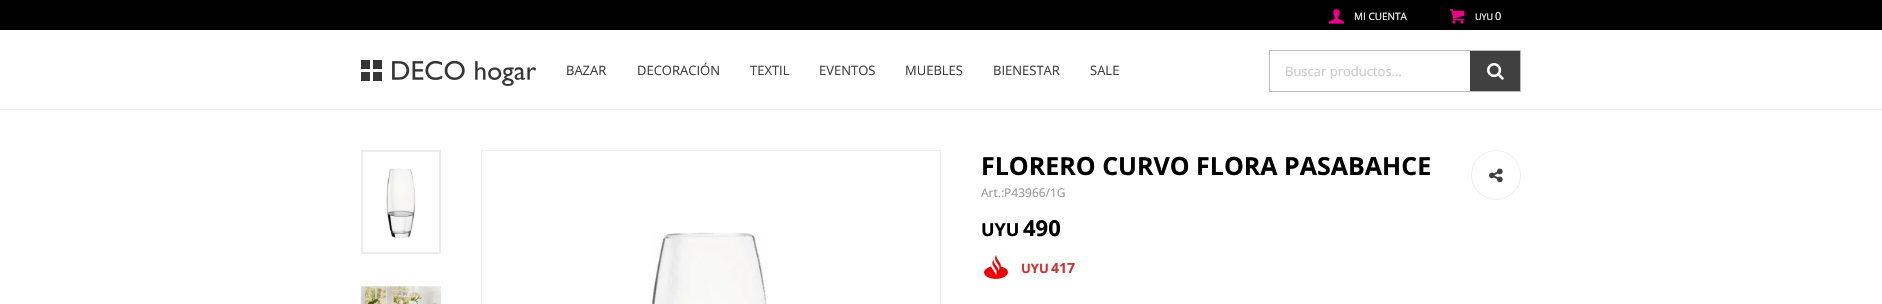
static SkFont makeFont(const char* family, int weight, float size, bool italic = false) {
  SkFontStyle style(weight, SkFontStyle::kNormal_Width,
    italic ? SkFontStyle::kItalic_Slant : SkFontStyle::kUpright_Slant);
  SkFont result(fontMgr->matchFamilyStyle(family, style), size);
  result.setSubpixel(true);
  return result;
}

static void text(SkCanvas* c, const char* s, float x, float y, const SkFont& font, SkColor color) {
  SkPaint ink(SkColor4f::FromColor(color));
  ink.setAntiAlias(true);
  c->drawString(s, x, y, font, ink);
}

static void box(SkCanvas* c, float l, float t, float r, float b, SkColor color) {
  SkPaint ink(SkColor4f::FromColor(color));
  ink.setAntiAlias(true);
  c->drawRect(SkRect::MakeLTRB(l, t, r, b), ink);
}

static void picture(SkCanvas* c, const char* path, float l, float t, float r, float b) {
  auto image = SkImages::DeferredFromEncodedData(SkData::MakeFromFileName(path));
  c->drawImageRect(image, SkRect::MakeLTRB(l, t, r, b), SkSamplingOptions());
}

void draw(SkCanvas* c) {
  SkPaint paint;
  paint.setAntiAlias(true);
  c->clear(0xffffffff);
  box(c, 0, 0, 1882, 30, 0xff000000);
  box(c, 0, 109, 1882, 110, 0xffededed);
  picture(c, "img_01.png", 1329, 9, 1345, 24);
  SkFont face1 = makeFont("Open Sans", 400, 10);
  text(c, "MI CUENTA", 1354, 20, face1, 0xffffffff);
  picture(c, "img_02.png", 1450, 9, 1465, 24);
  SkFont face2 = makeFont("Open Sans", 400, 9);
  text(c, "UYU", 1475, 20, face2, 0xffffffff);
  SkFont face3 = makeFont("Open Sans", 400, 11);
  text(c, "0", 1495, 20, face3, 0xffffffff);
  picture(c, "img_03.png", 361, 60, 536, 86);
  SkFont face4 = makeFont("Open Sans", 400, 13);
  text(c, "BAZAR", 566, 75, face4, 0xff404041);
  text(c, "DECORACIÓN", 637, 75, face4, 0xff404041);
  text(c, "TEXTIL", 750, 75, face4, 0xff404041);
  text(c, "EVENTOS", 819, 75, face4, 0xff404041);
  text(c, "MUEBLES", 905, 75, face4, 0xff404041);
  text(c, "BIENESTAR", 993, 75, face4, 0xff404041);
  text(c, "SALE", 1090, 75, face4, 0xff404041);
  paint.setStyle(SkPaint::kStroke_Style);
  paint.setStrokeWidth(1);
  paint.setColor(0xffbbbdc0);
  c->drawRect(SkRect::MakeLTRB(1269.5f, 50.5f, 1520.5f, 91.5f), paint);
  text(c, "Buscar productos...", 1285, 76, face4, 0xffcccccc);
  box(c, 1470, 51, 1520, 91, 0xff404041);
  picture(c, "img_04.png", 1487, 63, 1504, 80);
  picture(c, "img_05.png", 386, 168, 416, 238);
  paint.setStrokeWidth(2);
  paint.setColor(0xffededed);
  c->drawRect(SkRect::MakeLTRB(362, 151, 440, 253), paint);
  picture(c, "img_06.png", 361, 286, 441, 304);
  paint.setStrokeWidth(1);
  c->drawRect(SkRect::MakeLTRB(481.5f, 150.5f, 940.5f, 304.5f), paint);
  picture(c, "img_07.png", 651, 232, 768, 304);
  SkFont face5 = makeFont("Open Sans", 700, 25);
  text(c, "FLORERO CURVO FLORA PASABAHCE", 981, 175, face5, 0xff000000);
  SkFont face6 = makeFont("Open Sans", 400, 12);
  text(c, "Art.:P43966/1G", 981, 197, face6, 0xff999999);
  c->drawCircle(1496, 175, 24.5f, paint);
  picture(c, "img_08.png", 1489, 168, 1503, 183);
  SkFont face7 = makeFont("Open Sans", 700, 18);
  text(c, "UYU", 981, 236, face7, 0xff000000);
  SkFont face8 = makeFont("Open Sans", 700, 22);
  text(c, "490", 1023, 236, face8, 0xff000000);
  picture(c, "img_09.png", 984, 255, 1008, 279);
  SkFont face9 = makeFont("Open Sans", 700, 13);
  text(c, "UYU", 1021, 273, face9, 0xffd23232);
  SkFont face10 = makeFont("Open Sans", 700, 14);
  text(c, "417", 1051, 273, face10, 0xffd23232);
}
